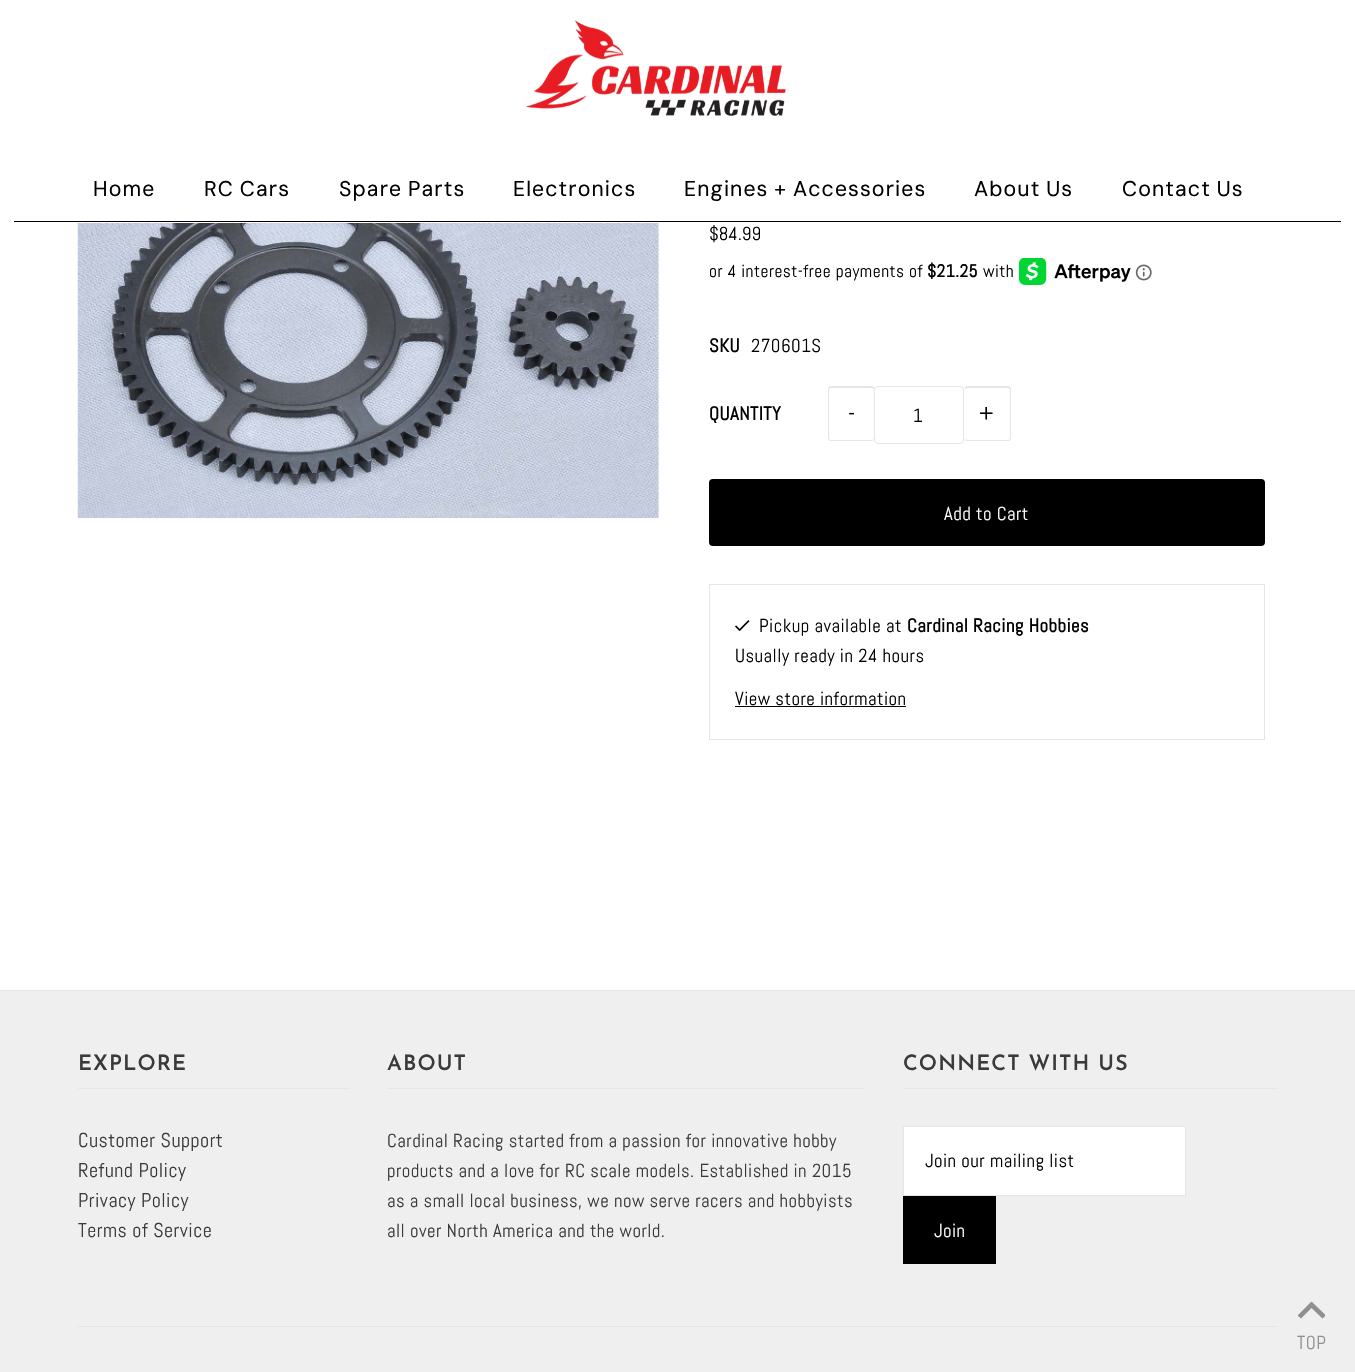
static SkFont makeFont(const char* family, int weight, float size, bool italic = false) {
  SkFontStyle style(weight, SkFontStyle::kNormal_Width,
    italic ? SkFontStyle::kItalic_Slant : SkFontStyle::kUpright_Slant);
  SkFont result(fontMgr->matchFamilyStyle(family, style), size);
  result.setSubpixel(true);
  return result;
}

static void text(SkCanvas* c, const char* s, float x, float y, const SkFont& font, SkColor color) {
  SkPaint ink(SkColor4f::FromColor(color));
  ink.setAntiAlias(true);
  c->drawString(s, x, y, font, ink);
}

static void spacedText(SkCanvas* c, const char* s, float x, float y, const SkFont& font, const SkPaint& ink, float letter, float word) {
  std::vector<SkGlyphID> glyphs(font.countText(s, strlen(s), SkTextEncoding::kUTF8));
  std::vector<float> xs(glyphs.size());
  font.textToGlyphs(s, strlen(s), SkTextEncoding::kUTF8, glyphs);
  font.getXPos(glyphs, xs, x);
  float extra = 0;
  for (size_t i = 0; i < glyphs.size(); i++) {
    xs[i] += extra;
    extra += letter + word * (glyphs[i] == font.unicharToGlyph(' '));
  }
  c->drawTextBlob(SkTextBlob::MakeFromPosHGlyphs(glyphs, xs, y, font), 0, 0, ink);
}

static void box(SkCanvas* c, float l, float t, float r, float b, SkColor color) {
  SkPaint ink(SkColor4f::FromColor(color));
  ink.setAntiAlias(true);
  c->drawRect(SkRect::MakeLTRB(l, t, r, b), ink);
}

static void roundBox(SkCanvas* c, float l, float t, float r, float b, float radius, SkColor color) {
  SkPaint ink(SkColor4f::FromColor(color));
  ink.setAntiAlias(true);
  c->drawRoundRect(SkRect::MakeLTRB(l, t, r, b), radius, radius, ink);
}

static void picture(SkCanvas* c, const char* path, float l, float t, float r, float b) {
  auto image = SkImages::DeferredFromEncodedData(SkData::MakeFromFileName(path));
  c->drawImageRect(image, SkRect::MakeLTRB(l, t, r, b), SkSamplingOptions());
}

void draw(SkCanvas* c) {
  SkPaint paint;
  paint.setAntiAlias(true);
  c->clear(0xffffffff);
  box(c, 14, 221, 1341, 222, 0xff000000);
  picture(c, "img_01.png", 526, 20, 786, 116);
  SkFont face1 = makeFont("DM Sans", 400, 21.25f);
  paint.setColor(0xff000000);
  spacedText(c, "Home", 93, 196, face1, paint, 1.1f, 0);
  spacedText(c, "RC Cars", 204, 196, face1, paint, 1.1f, -1);
  spacedText(c, "Spare Parts", 339, 196, face1, paint, 1.1f, -1);
  spacedText(c, "Electronics", 513, 196, face1, paint, 1.1f, 0);
  spacedText(c, "Engines + Accessories", 684, 196, face1, paint, 1.1f, -1);
  spacedText(c, "About Us", 974, 196, face1, paint, 1.1f, -1);
  spacedText(c, "Contact Us", 1122, 196, face1, paint, 1.1f, -1);
  picture(c, "img_02.png", 77, 223, 659, 519);
  SkFont face2 = makeFont("Abel", 400, 18.75f);
  text(c, "$84.99", 709, 240, face2, 0xff000000);
  SkFont face3 = makeFont("Abel", 400, 17.5f);
  spacedText(c, "or 4 interest-free payments of", 709, 277, face3, paint, 0.47f, 0);
  SkFont face4 = makeFont("Abel", 700, 17.5f);
  spacedText(c, "$21.25", 927, 277, face4, paint, 0.47f, 0);
  spacedText(c, "with", 983, 277, face3, paint, 0.47f, 0);
  picture(c, "img_03.png", 1019, 258, 1131, 285);
  picture(c, "img_04.png", 1135, 264, 1152, 281);
  SkFont face5 = makeFont("Abel", 700, 18.75f);
  spacedText(c, "SKU", 709, 352, face5, paint, 0.47f, 0);
  spacedText(c, "270601S", 751, 352, face2, paint, 0.47f, 0);
  spacedText(c, "QUANTITY", 709, 420, face5, paint, 0.47f, 0);
  paint.setColor(0xffe5e5e5);
  c->drawPath(SkPathBuilder(SkPathFillType::kEvenOdd).moveTo(831, 386).lineTo(871, 386).cubicTo(873, 386, 875, 388, 875, 390).lineTo(875, 438).cubicTo(875, 440, 873, 441, 871, 441).lineTo(831, 441).cubicTo(829, 441, 828, 440, 828, 438).lineTo(828, 390).cubicTo(828, 388, 829, 386, 831, 386).close().moveTo(831, 388).lineTo(871, 388).cubicTo(873, 388, 875, 389, 875, 390).lineTo(875, 438).cubicTo(875, 439, 873, 440, 871, 440).lineTo(831, 440).cubicTo(830, 440, 829, 439, 829, 438).lineTo(829, 390).cubicTo(829, 389, 830, 388, 831, 388).close().detach(), paint);
  SkFont face6 = makeFont("Abel", 400, 25);
  paint.setColor(0xff000000);
  spacedText(c, "-", 848, 422, face6, paint, 1, 0);
  paint.setColor(0xffffffff);
  c->drawRoundRect(SkRect::MakeLTRB(874.5f, 386.5f, 963.5f, 443.5f), 3.5f, 3.5f, paint);
  paint.setStyle(SkPaint::kStroke_Style);
  paint.setStrokeWidth(1);
  paint.setColor(0xffe5e5e5);
  c->drawRoundRect(SkRect::MakeLTRB(874.5f, 386.5f, 963.5f, 443.5f), 3.5f, 3.5f, paint);
  paint.setStyle(SkPaint::kFill_Style);
  paint.setColor(0xff000000);
  spacedText(c, "1", 913, 422, face2, paint, 0.47f, 0);
  paint.setColor(0xffe5e5e5);
  c->drawPath(SkPathBuilder(SkPathFillType::kEvenOdd).moveTo(968, 386).lineTo(1008, 386).cubicTo(1010, 386, 1011, 388, 1011, 390).lineTo(1011, 438).cubicTo(1011, 440, 1010, 441, 1008, 441).lineTo(968, 441).cubicTo(965, 441, 964, 440, 964, 438).lineTo(964, 390).cubicTo(964, 388, 965, 386, 968, 386).close().moveTo(968, 388).lineTo(1008, 388).cubicTo(1009, 388, 1010, 389, 1010, 390).lineTo(1010, 438).cubicTo(1010, 439, 1009, 440, 1008, 440).lineTo(968, 440).cubicTo(965, 440, 964, 439, 964, 438).lineTo(964, 390).cubicTo(964, 389, 965, 388, 968, 388).close().detach(), paint);
  paint.setColor(0xff000000);
  spacedText(c, "+", 979, 422, face6, paint, 1, 0);
  roundBox(c, 709, 479, 1265, 546, 4, 0xff000000);
  paint.setColor(0xffffffff);
  spacedText(c, "Add to Cart", 944, 520, face2, paint, 0.47f, 0);
  paint.setStyle(SkPaint::kStroke_Style);
  paint.setColor(0xffe5e5e5);
  c->drawRect(SkRect::MakeLTRB(709.5f, 584.5f, 1264.5f, 739.5f), paint);
  picture(c, "img_05.png", 735, 620, 750, 631);
  paint.setStyle(SkPaint::kFill_Style);
  paint.setColor(0xff000000);
  spacedText(c, "Pickup available at", 759, 632, face2, paint, 0.47f, 0);
  spacedText(c, "Cardinal Racing Hobbies", 907, 632, face5, paint, 0.47f, 0);
  spacedText(c, "Usually ready in 24 hours", 735, 662, face2, paint, 0.47f, 0);
  spacedText(c, "View store information", 735, 705, face2, paint, 0.47f, 0);
  box(c, 735, 706, 906, 707, 0xff000000);
  box(c, 0, 991, 1355, 1372, 0xffefefef);
  box(c, 0, 990, 1355, 991, 0xffe5e5e5);
  box(c, 78, 1088, 350, 1089, 0xffe5e5e5);
  SkFont face7 = makeFont("Josefin Sans", 600, 21.25f);
  paint.setColor(0xff3a3a3a);
  spacedText(c, "EXPLORE", 78, 1070, face7, paint, 1.1f, 0);
  SkFont face8 = makeFont("Abel", 400, 20);
  spacedText(c, "Customer Support", 78, 1147, face8, paint, 0.47f, 0);
  spacedText(c, "Refund Policy", 78, 1177, face8, paint, 0.47f, 0);
  spacedText(c, "Privacy Policy", 78, 1207, face8, paint, 0.47f, 0);
  spacedText(c, "Terms of Service", 78, 1237, face8, paint, 0.47f, 0);
  box(c, 388, 1088, 865, 1089, 0xffe5e5e5);
  spacedText(c, "ABOUT", 387, 1070, face7, paint, 1.1f, 0);
  spacedText(c, "Cardinal Racing started from a passion for innovative hobby", 387, 1147, face2, paint, 0.47f, 0);
  spacedText(c, "products and a love for RC scale models. Established in 2015", 387, 1177, face2, paint, 0.47f, 0);
  spacedText(c, "as a small local business, we now serve racers and hobbyists", 387, 1207, face2, paint, 0.47f, 0);
  spacedText(c, "all over North America and the world.", 387, 1237, face2, paint, 0.47f, 0);
  box(c, 903, 1088, 1278, 1089, 0xffe5e5e5);
  spacedText(c, "CONNECT WITH US", 903, 1070, face7, paint, 1.1f, 0);
  paint.setColor(0xffffffff);
  c->drawRect(SkRect::MakeLTRB(903.5f, 1126.5f, 1185.5f, 1195.5f), paint);
  paint.setStyle(SkPaint::kStroke_Style);
  paint.setColor(0xffe5e5e5);
  c->drawRect(SkRect::MakeLTRB(903.5f, 1126.5f, 1185.5f, 1195.5f), paint);
  paint.setStyle(SkPaint::kFill_Style);
  paint.setColor(0xff000000);
  spacedText(c, "Join our mailing list", 925, 1167, face2, paint, 0.47f, 0);
  box(c, 903, 1196, 996, 1264, 0xff000000);
  paint.setColor(0xffffffff);
  spacedText(c, "Join", 934, 1237, face2, paint, 0.47f, 0);
  box(c, 78, 1326, 1278, 1327, 0xffe5e5e5);
  c->save();
  c->clipRect(SkRect::MakeLTRB(1298, 1301, 1325, 1319));
  paint.setColor(0xff8f8f8f);
  c->drawPath(SkPathBuilder().moveTo(1311.5f, 1301.5f).lineTo(1297.5f, 1315.5f).lineTo(1301, 1318.5f).lineTo(1311.5f, 1308).lineTo(1322.5f, 1318.5f).lineTo(1326, 1315.5f).close().detach(), paint);
  c->restore();
  spacedText(c, "TOP", 1297, 1349, face2, paint, 0.47f, 0);
}
